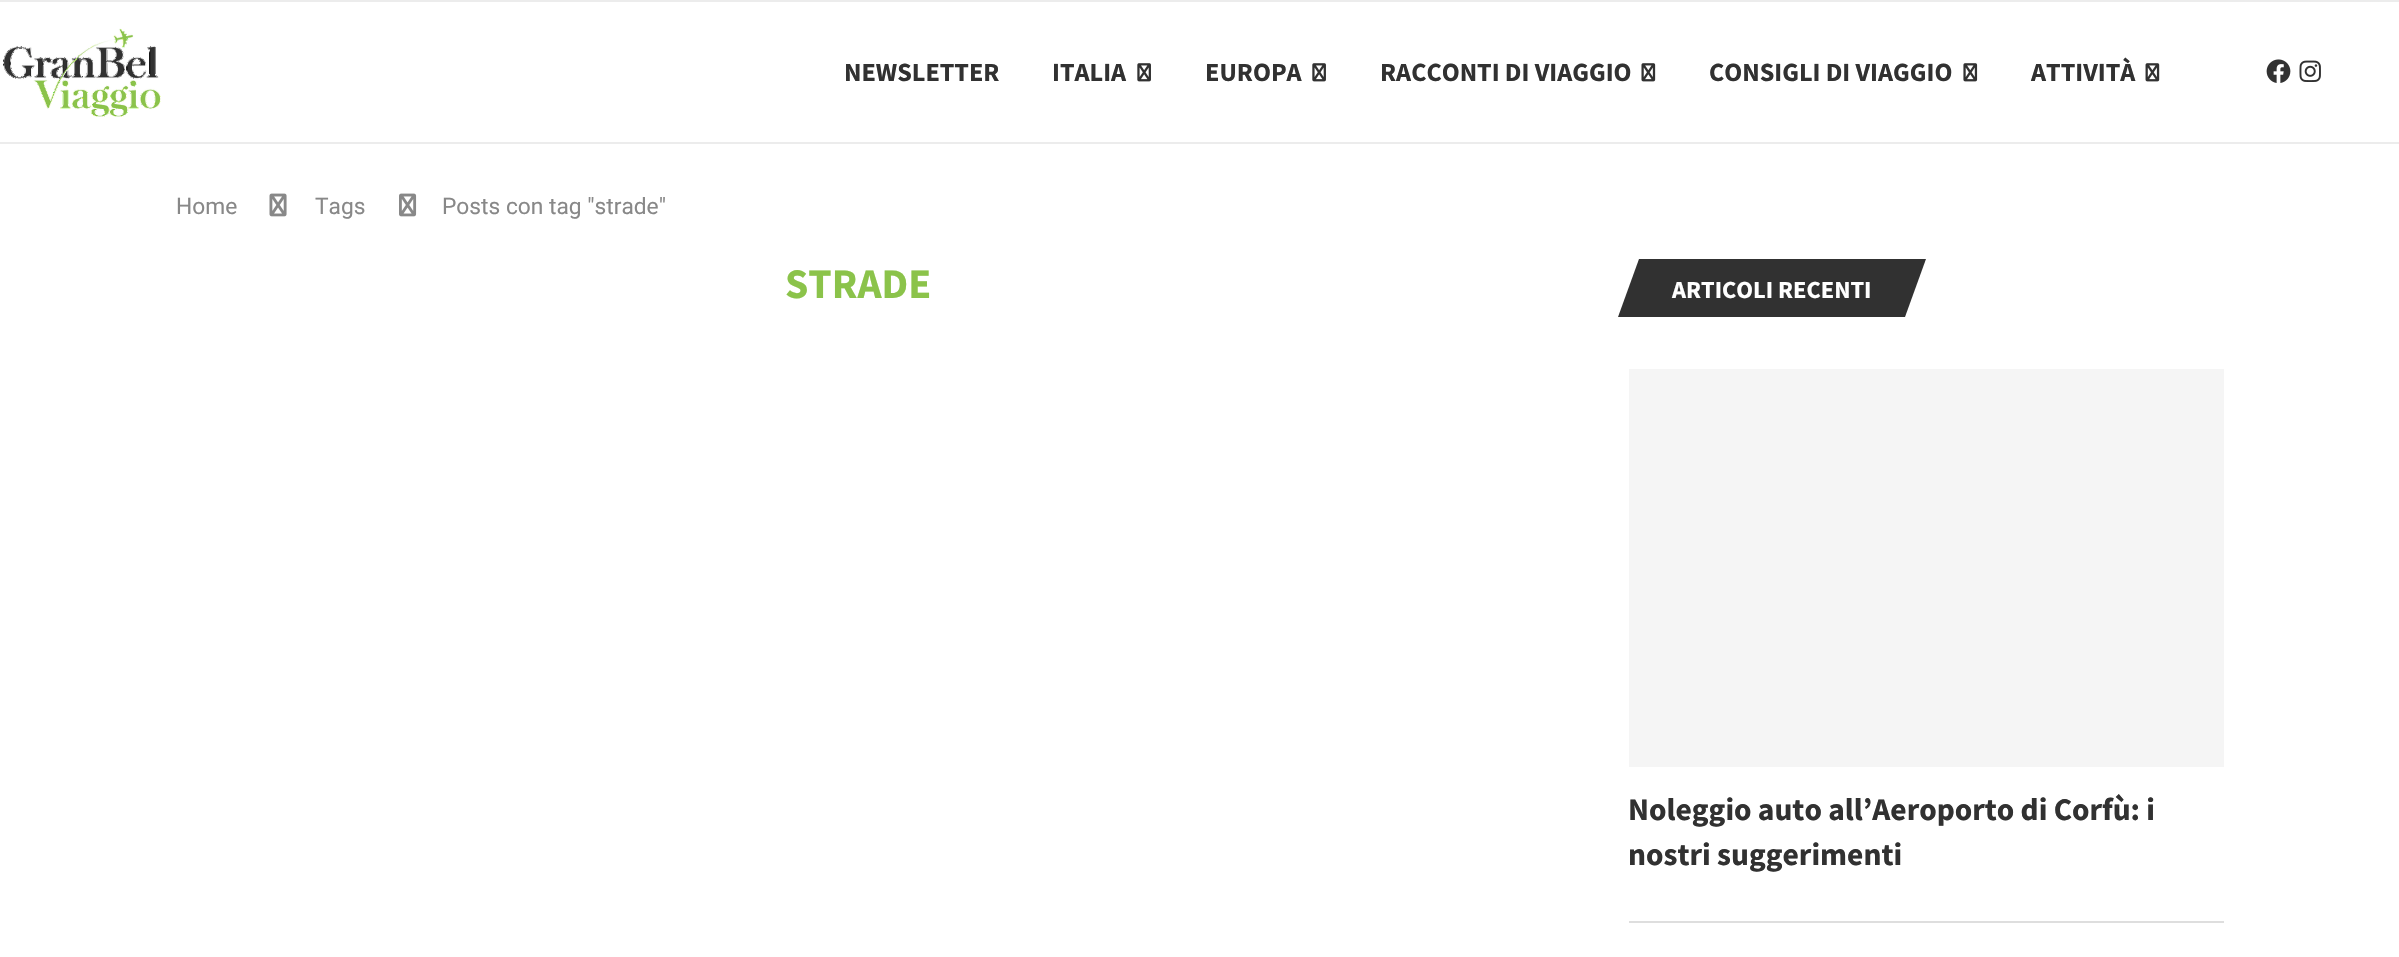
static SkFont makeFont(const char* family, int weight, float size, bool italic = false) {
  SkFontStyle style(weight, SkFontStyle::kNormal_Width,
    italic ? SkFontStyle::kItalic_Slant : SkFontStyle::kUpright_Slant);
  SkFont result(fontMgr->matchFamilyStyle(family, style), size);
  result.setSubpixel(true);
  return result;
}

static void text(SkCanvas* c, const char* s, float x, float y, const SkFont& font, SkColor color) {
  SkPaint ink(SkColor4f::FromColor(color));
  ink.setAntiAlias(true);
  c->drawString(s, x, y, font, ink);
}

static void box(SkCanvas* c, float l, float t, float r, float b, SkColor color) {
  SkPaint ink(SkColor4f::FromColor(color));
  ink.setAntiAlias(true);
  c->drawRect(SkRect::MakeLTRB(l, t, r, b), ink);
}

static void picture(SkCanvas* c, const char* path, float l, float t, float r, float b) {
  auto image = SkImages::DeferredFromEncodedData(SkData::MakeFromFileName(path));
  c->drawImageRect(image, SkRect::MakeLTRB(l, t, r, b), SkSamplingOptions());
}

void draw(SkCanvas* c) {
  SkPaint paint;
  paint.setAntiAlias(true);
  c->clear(0xffffffff);
  box(c, 0, 0, 2399, 2, 0xffececec);
  box(c, 0, 142, 2399, 144, 0xffececec);
  picture(c, "img_01.png", 3, 28, 161, 117);
  SkFont face1 = makeFont("Source Sans Pro", 700, 26.25f);
  text(c, "NEWSLETTER", 844, 81, face1, 0xff313131);
  text(c, "ITALIA", 1052, 81, face1, 0xff313131);
  picture(c, "img_02.png", 1137, 63, 1151, 82);
  text(c, "EUROPA", 1205, 81, face1, 0xff313131);
  picture(c, "img_03.png", 1312, 63, 1326, 82);
  text(c, "RACCONTI DI VIAGGIO", 1380, 81, face1, 0xff313131);
  picture(c, "img_04.png", 1641, 63, 1656, 82);
  text(c, "CONSIGLI DI VIAGGIO", 1709, 81, face1, 0xff313131);
  picture(c, "img_05.png", 1963, 63, 1978, 82);
  text(c, "ATTIVITÀ", 2031, 81, face1, 0xff313131);
  picture(c, "img_06.png", 2145, 63, 2160, 82);
  picture(c, "img_07.png", 2266, 59, 2291, 83);
  picture(c, "img_08.png", 2299, 60, 2321, 82);
  SkFont face2 = makeFont("Roboto", 400, 22.75f);
  text(c, "Home", 176, 214, face2, 0xff888888);
  picture(c, "img_09.png", 269, 193, 287, 217);
  text(c, "Tags", 315, 214, face2, 0xff888888);
  picture(c, "img_10.png", 399, 193, 417, 217);
  text(c, "Posts con tag \"strade\"", 442, 214, face2, 0xff888888);
  SkFont face3 = makeFont("Source Sans Pro", 700, 42);
  text(c, "STRADE", 785, 298, face3, 0xff8bc34a);
  paint.setColor(0xff313131);
  c->drawPath(SkPathBuilder().moveTo(1639, 259).lineTo(1926, 259).lineTo(1905, 317).lineTo(1618, 317).close().detach(), paint);
  SkFont face4 = makeFont("Source Sans Pro", 700, 24.5f);
  text(c, "ARTICOLI RECENTI", 1672, 298, face4, 0xffffffff);
  box(c, 1629, 921, 2224, 923, 0xffdedede);
  box(c, 1629, 369, 2224, 767, 0xfff5f5f5);
  SkFont face5 = makeFont("Source Sans Pro", 700, 31.5f);
  text(c, "Noleggio auto all’Aeroporto di Corfù: i", 1628, 820, face5, 0xff313131);
  text(c, "nostri suggerimenti", 1628, 865, face5, 0xff313131);
}
